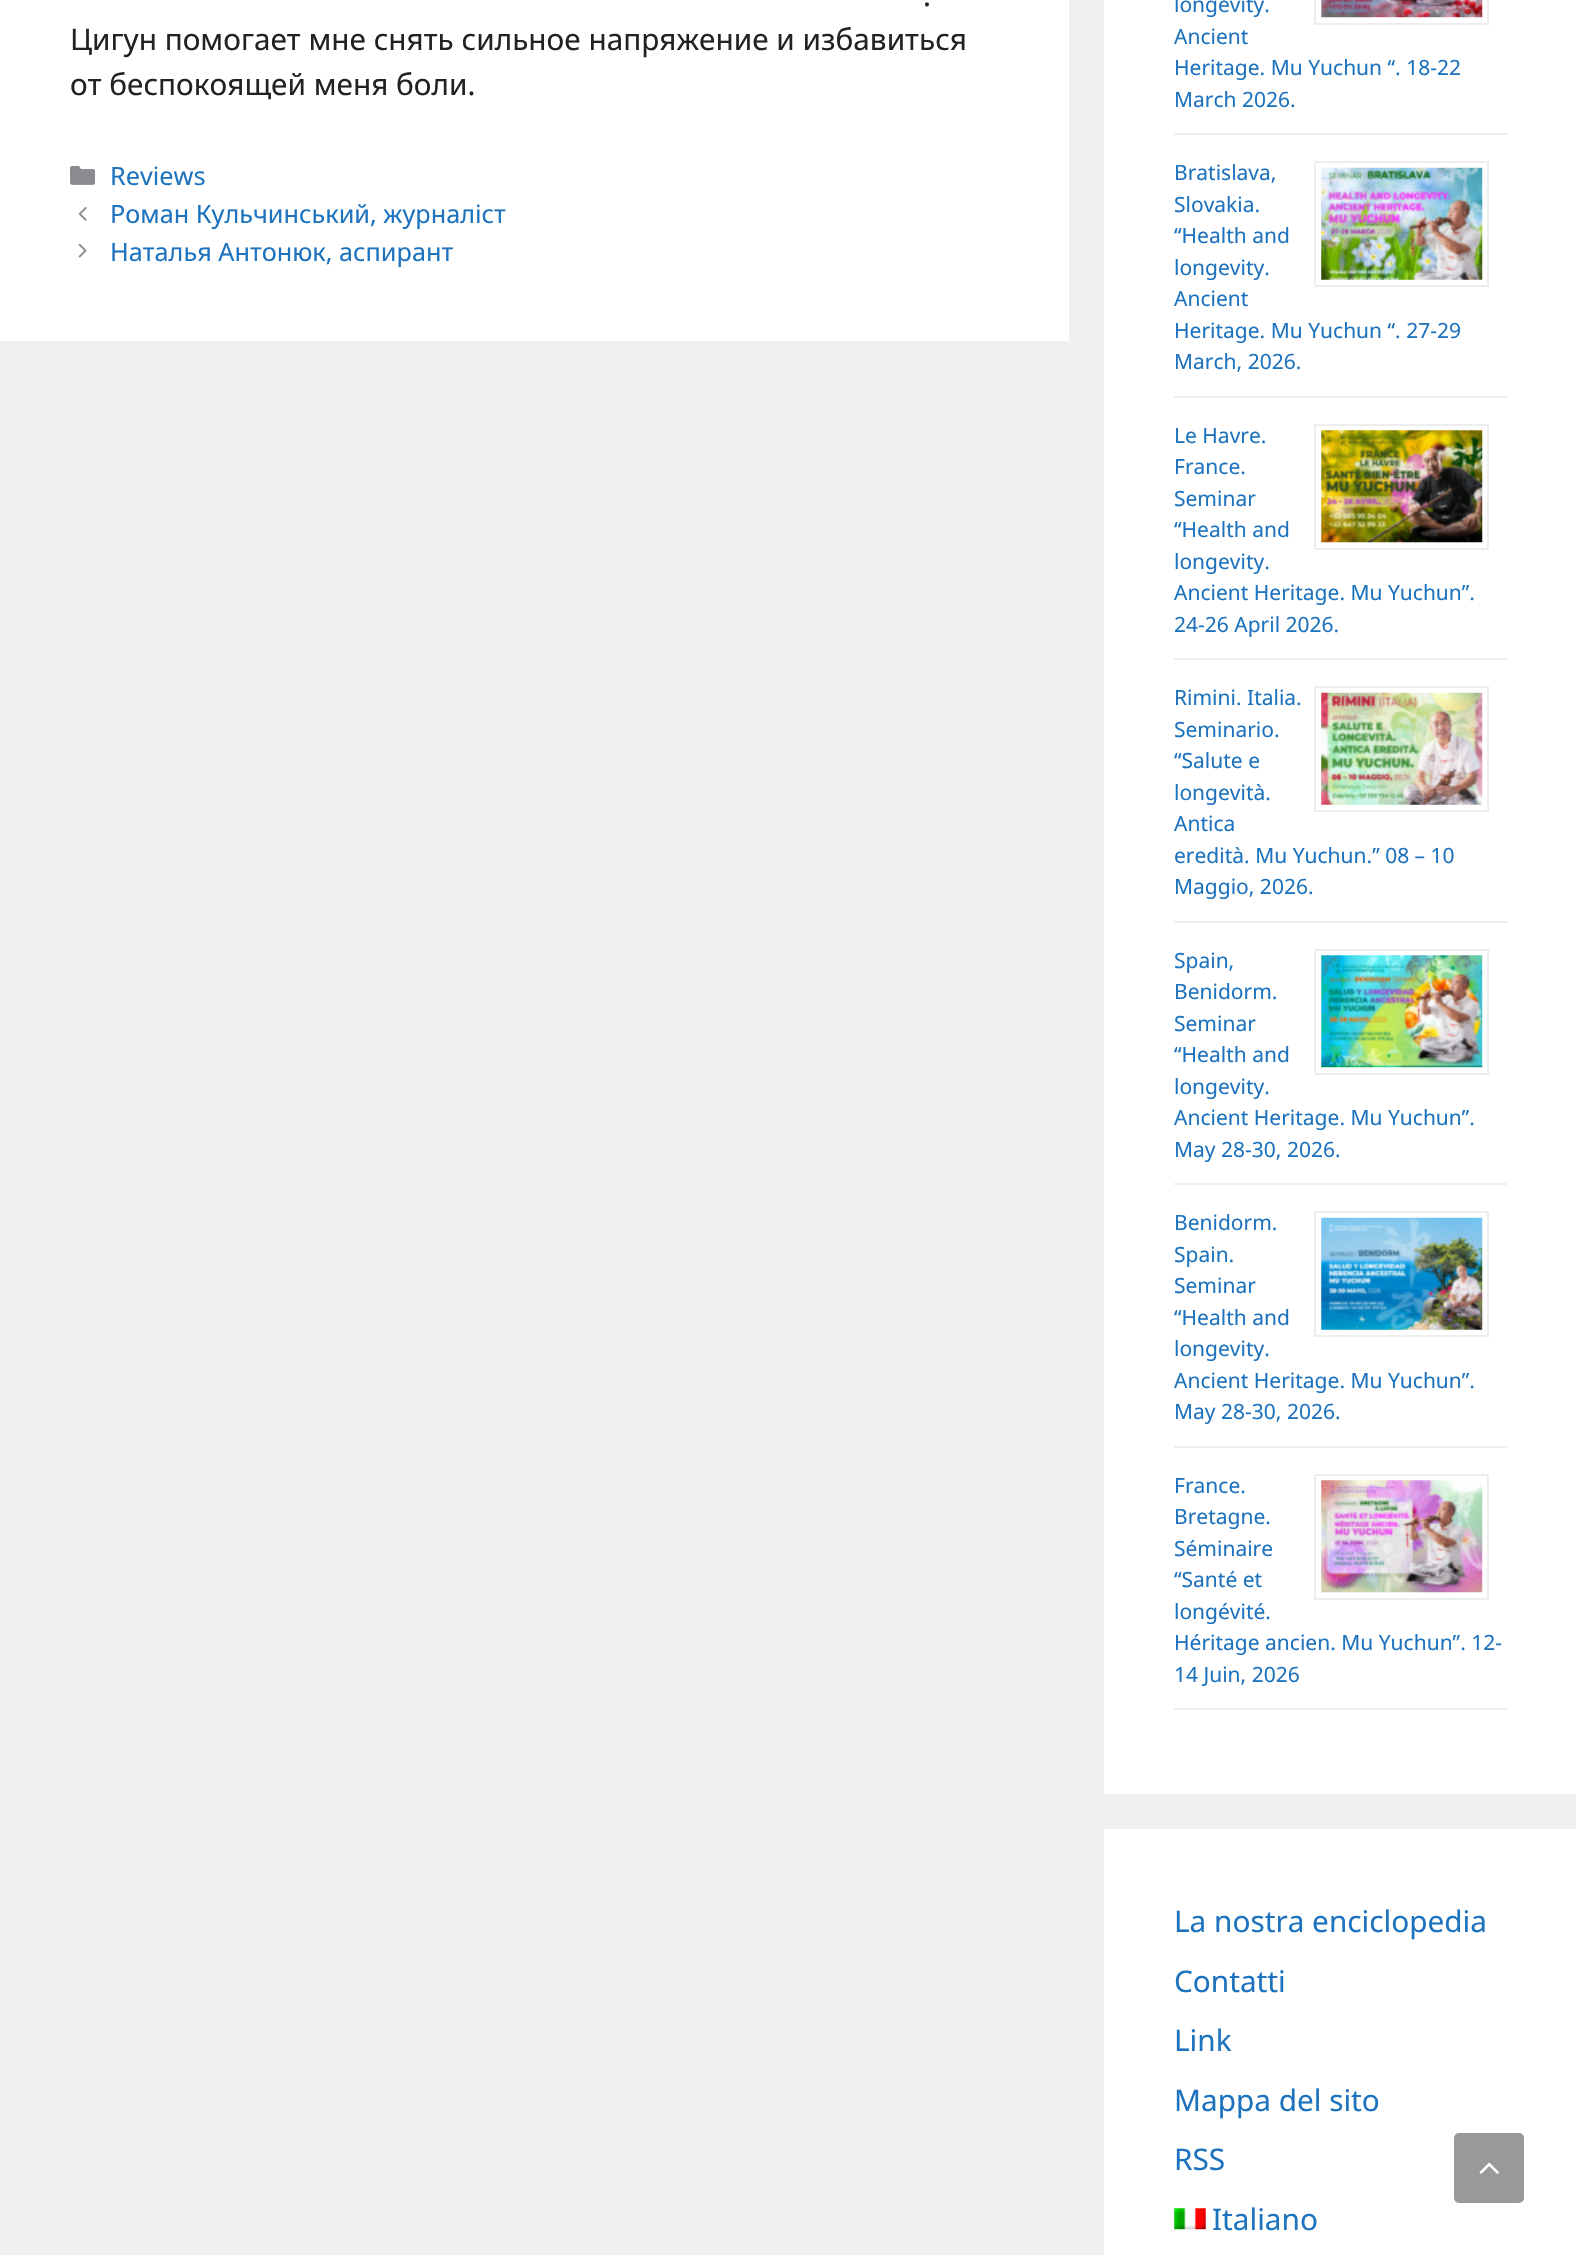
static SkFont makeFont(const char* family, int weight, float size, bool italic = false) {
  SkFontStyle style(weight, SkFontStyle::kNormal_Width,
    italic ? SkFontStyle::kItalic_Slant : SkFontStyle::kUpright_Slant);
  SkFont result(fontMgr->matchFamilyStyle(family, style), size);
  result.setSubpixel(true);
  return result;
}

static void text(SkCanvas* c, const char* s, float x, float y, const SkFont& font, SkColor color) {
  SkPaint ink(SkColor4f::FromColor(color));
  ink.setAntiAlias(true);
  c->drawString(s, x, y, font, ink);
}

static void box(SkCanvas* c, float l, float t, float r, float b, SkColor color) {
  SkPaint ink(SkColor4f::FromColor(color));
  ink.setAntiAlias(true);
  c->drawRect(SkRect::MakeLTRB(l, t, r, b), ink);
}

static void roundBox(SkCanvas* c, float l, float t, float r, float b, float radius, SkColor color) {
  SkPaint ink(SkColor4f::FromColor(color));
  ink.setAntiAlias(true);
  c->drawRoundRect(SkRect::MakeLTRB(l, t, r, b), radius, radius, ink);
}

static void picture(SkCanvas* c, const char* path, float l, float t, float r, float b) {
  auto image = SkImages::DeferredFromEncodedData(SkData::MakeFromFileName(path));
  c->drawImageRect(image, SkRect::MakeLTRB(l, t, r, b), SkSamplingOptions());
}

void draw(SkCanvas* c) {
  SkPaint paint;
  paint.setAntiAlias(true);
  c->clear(0xfff0f0f0);
  box(c, 0, 0, 1069, 341, 0xffffffff);
  SkFont face1 = makeFont("Noto Sans", 400, 29.75f);
  text(c, ".", 923, 6, face1, 0xff222222);
  text(c, "Цигун помогает мне снять сильное напряжение и избавиться", 70, 50, face1, 0xff222222);
  text(c, "от беспокоящей меня боли.", 70, 95, face1, 0xff222222);
  picture(c, "img_01.png", 70, 165, 95, 185);
  SkFont face2 = makeFont("Noto Sans", 400, 25.25f);
  text(c, "Reviews", 110, 185, face2, 0xff1e73be);
  picture(c, "img_02.png", 78, 207, 87, 221);
  text(c, "Роман Кульчинський, журналіст", 110, 223, face2, 0xff1e73be);
  picture(c, "img_03.png", 78, 243, 87, 258);
  text(c, "Наталья Антонюк, аспирант", 110, 261, face2, 0xff1e73be);
  box(c, 1104, 0, 1576, 1794, 0xffffffff);
  box(c, 1174, 133, 1507, 135, 0xffeeeeee);
  paint.setStyle(SkPaint::kStroke_Style);
  paint.setStrokeWidth(2);
  paint.setColor(0xffeeeeee);
  c->drawRect(SkRect::MakeLTRB(1315, -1, 1488, 24), paint);
  picture(c, "img_04.png", 1321, 0, 1483, 18);
  SkFont face3 = makeFont("Noto Sans", 400, 21);
  text(c, "longevity.", 1174, 12, face3, 0xff1e73be);
  text(c, "Ancient", 1174, 44, face3, 0xff1e73be);
  text(c, "Heritage. Mu Yuchun “. 18-22", 1174, 75, face3, 0xff1e73be);
  text(c, "March 2026.", 1174, 107, face3, 0xff1e73be);
  box(c, 1174, 396, 1507, 398, 0xffeeeeee);
  c->drawRect(SkRect::MakeLTRB(1315, 162, 1488, 286), paint);
  picture(c, "img_05.png", 1321, 167, 1483, 280);
  text(c, "Bratislava,", 1174, 180, face3, 0xff1e73be);
  text(c, "Slovakia.", 1174, 212, face3, 0xff1e73be);
  text(c, "“Health and", 1174, 243, face3, 0xff1e73be);
  text(c, "longevity.", 1174, 275, face3, 0xff1e73be);
  text(c, "Ancient", 1174, 306, face3, 0xff1e73be);
  text(c, "Heritage. Mu Yuchun “. 27-29", 1174, 338, face3, 0xff1e73be);
  text(c, "March, 2026.", 1174, 369, face3, 0xff1e73be);
  box(c, 1174, 658, 1507, 660, 0xffeeeeee);
  c->drawRect(SkRect::MakeLTRB(1315, 425, 1488, 549), paint);
  picture(c, "img_06.png", 1321, 430, 1483, 543);
  text(c, "Le Havre.", 1174, 443, face3, 0xff1e73be);
  text(c, "France.", 1174, 474, face3, 0xff1e73be);
  text(c, "Seminar", 1174, 506, face3, 0xff1e73be);
  text(c, "“Health and", 1174, 537, face3, 0xff1e73be);
  text(c, "longevity.", 1174, 569, face3, 0xff1e73be);
  text(c, "Ancient Heritage. Mu Yuchun”.", 1174, 600, face3, 0xff1e73be);
  text(c, "24-26 April 2026.", 1174, 632, face3, 0xff1e73be);
  box(c, 1174, 921, 1507, 923, 0xffeeeeee);
  c->drawRect(SkRect::MakeLTRB(1315, 687, 1488, 811), paint);
  picture(c, "img_07.png", 1321, 692, 1483, 805);
  text(c, "Rimini. Italia.", 1174, 705, face3, 0xff1e73be);
  text(c, "Seminario.", 1174, 737, face3, 0xff1e73be);
  text(c, "“Salute e", 1174, 768, face3, 0xff1e73be);
  text(c, "longevità.", 1174, 800, face3, 0xff1e73be);
  text(c, "Antica", 1174, 831, face3, 0xff1e73be);
  text(c, "eredità. Mu Yuchun.” 08 – 10", 1174, 863, face3, 0xff1e73be);
  text(c, "Maggio, 2026.", 1174, 894, face3, 0xff1e73be);
  box(c, 1174, 1183, 1507, 1185, 0xffeeeeee);
  c->drawRect(SkRect::MakeLTRB(1315, 950, 1488, 1074), paint);
  picture(c, "img_08.png", 1321, 955, 1483, 1068);
  text(c, "Spain,", 1174, 968, face3, 0xff1e73be);
  text(c, "Benidorm.", 1174, 999, face3, 0xff1e73be);
  text(c, "Seminar", 1174, 1031, face3, 0xff1e73be);
  text(c, "“Health and", 1174, 1062, face3, 0xff1e73be);
  text(c, "longevity.", 1174, 1094, face3, 0xff1e73be);
  text(c, "Ancient Heritage. Mu Yuchun”.", 1174, 1125, face3, 0xff1e73be);
  text(c, "May 28-30, 2026.", 1174, 1157, face3, 0xff1e73be);
  box(c, 1174, 1446, 1507, 1448, 0xffeeeeee);
  c->drawRect(SkRect::MakeLTRB(1315, 1212, 1488, 1336), paint);
  picture(c, "img_09.png", 1321, 1217, 1483, 1330);
  text(c, "Benidorm.", 1174, 1230, face3, 0xff1e73be);
  text(c, "Spain.", 1174, 1262, face3, 0xff1e73be);
  text(c, "Seminar", 1174, 1293, face3, 0xff1e73be);
  text(c, "“Health and", 1174, 1325, face3, 0xff1e73be);
  text(c, "longevity.", 1174, 1356, face3, 0xff1e73be);
  text(c, "Ancient Heritage. Mu Yuchun”.", 1174, 1388, face3, 0xff1e73be);
  text(c, "May 28-30, 2026.", 1174, 1419, face3, 0xff1e73be);
  box(c, 1174, 1708, 1507, 1710, 0xffeeeeee);
  c->drawRect(SkRect::MakeLTRB(1315, 1475, 1488, 1599), paint);
  picture(c, "img_10.png", 1321, 1480, 1483, 1593);
  text(c, "France.", 1174, 1493, face3, 0xff1e73be);
  text(c, "Bretagne.", 1174, 1524, face3, 0xff1e73be);
  text(c, "Séminaire", 1174, 1556, face3, 0xff1e73be);
  text(c, "“Santé et", 1174, 1587, face3, 0xff1e73be);
  text(c, "longévité.", 1174, 1619, face3, 0xff1e73be);
  text(c, "Héritage ancien. Mu Yuchun”. 12-", 1174, 1650, face3, 0xff1e73be);
  text(c, "14 Juin, 2026", 1174, 1682, face3, 0xff1e73be);
  box(c, 1104, 1829, 1576, 2255, 0xffffffff);
  text(c, "La nostra enciclopedia", 1174, 1932, face1, 0xff1e73be);
  text(c, "Contatti", 1174, 1992, face1, 0xff1e73be);
  text(c, "Link", 1174, 2051, face1, 0xff1e73be);
  text(c, "Mappa del sito", 1174, 2111, face1, 0xff1e73be);
  text(c, "RSS", 1174, 2170, face1, 0xff1e73be);
  picture(c, "img_11.png", 1174, 2208, 1206, 2230);
  text(c, "Italiano", 1212, 2230, face1, 0xff1e73be);
  roundBox(c, 1454, 2133, 1524, 2203, 5, 0xff999999);
  picture(c, "img_12.png", 1479, 2162, 1499, 2174);
}
